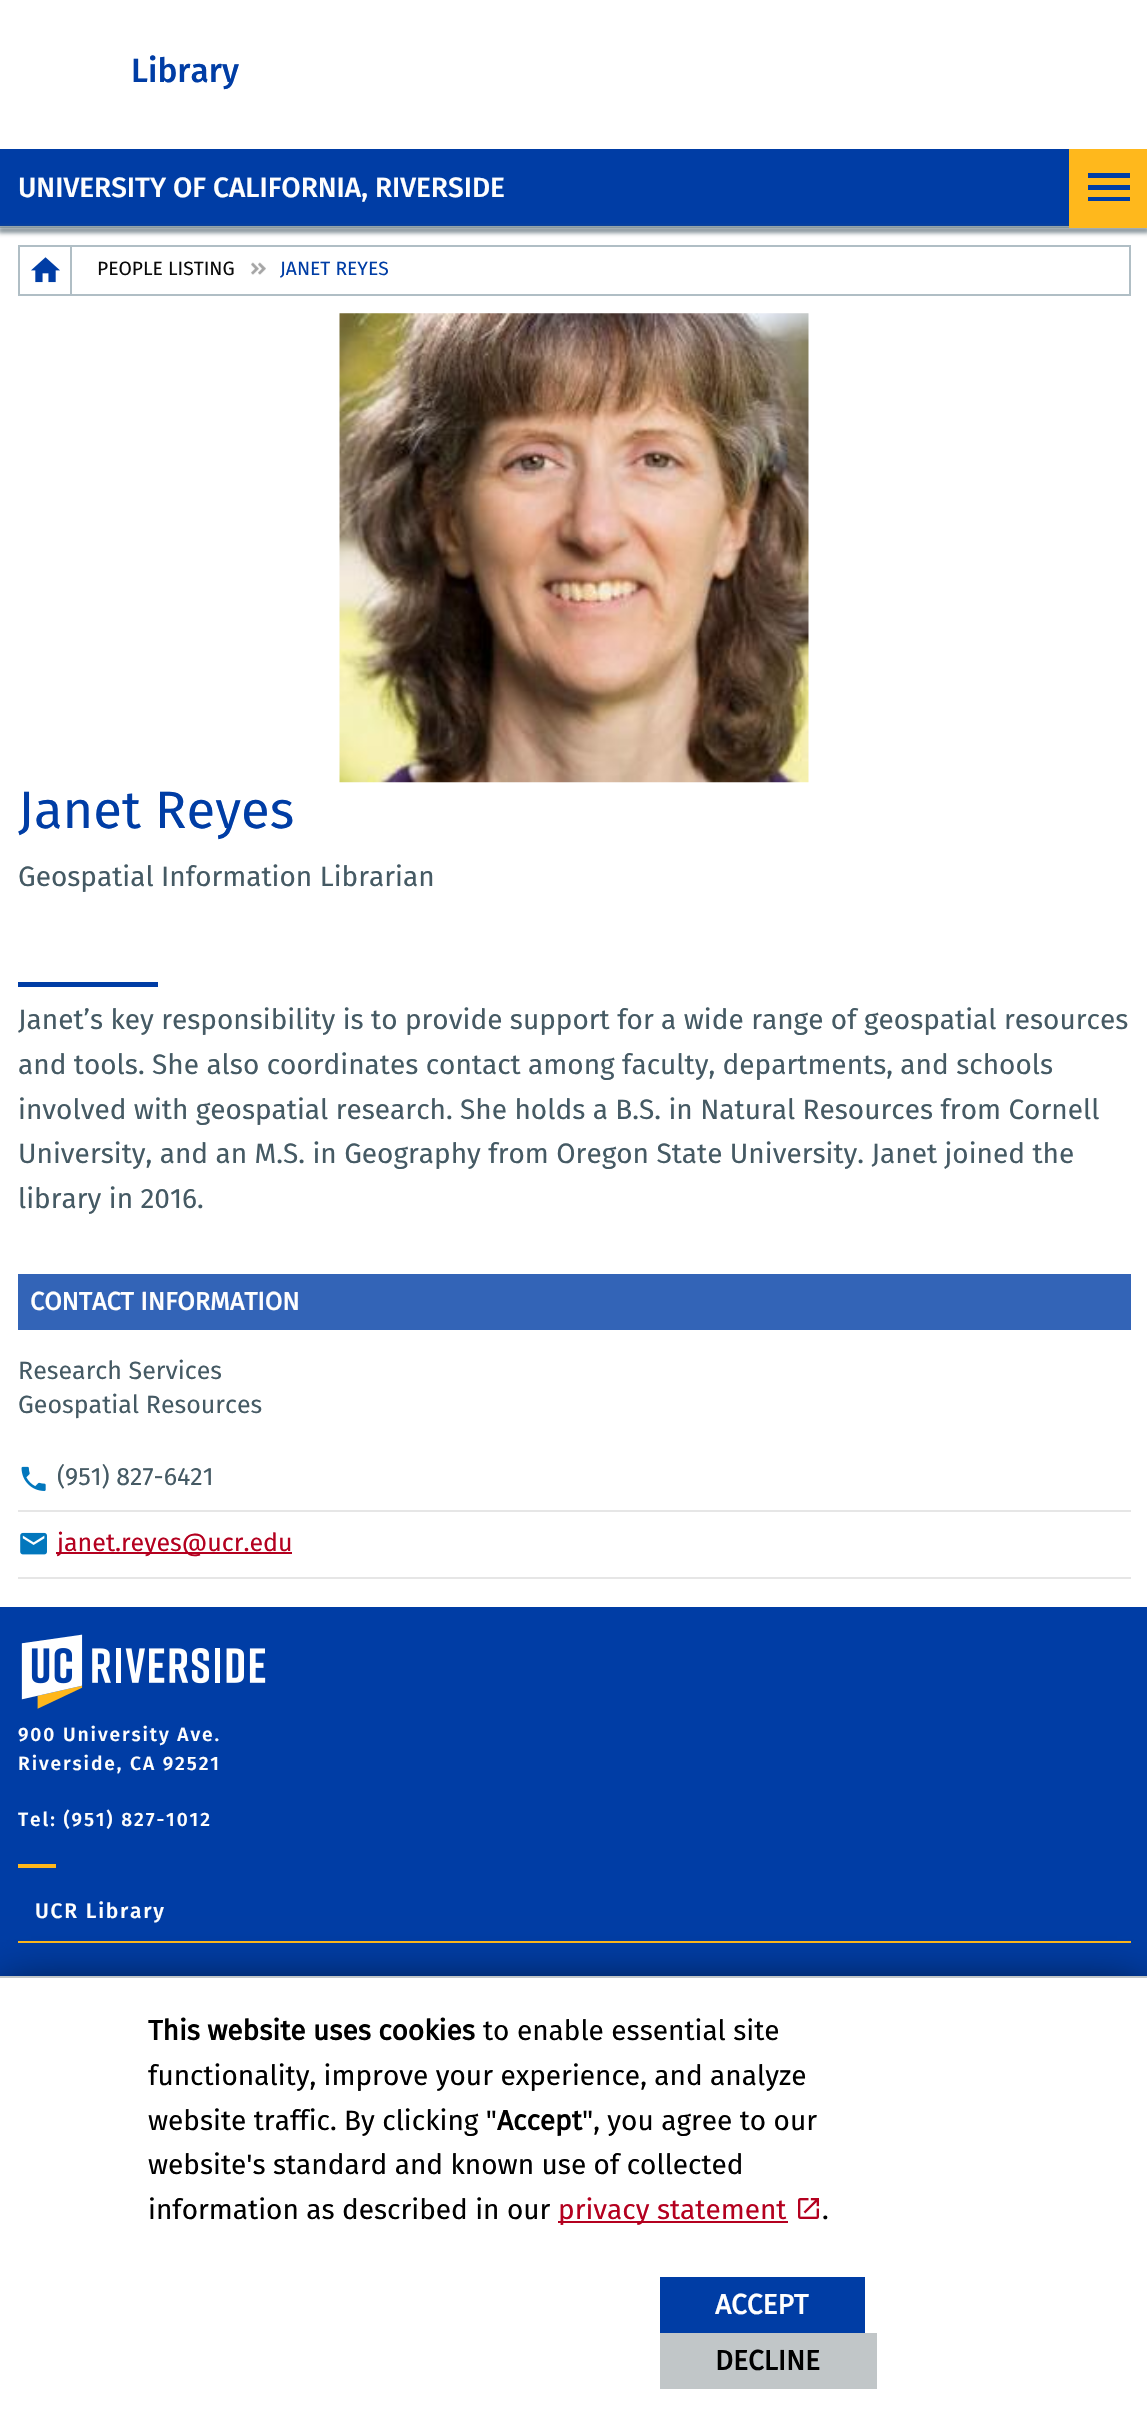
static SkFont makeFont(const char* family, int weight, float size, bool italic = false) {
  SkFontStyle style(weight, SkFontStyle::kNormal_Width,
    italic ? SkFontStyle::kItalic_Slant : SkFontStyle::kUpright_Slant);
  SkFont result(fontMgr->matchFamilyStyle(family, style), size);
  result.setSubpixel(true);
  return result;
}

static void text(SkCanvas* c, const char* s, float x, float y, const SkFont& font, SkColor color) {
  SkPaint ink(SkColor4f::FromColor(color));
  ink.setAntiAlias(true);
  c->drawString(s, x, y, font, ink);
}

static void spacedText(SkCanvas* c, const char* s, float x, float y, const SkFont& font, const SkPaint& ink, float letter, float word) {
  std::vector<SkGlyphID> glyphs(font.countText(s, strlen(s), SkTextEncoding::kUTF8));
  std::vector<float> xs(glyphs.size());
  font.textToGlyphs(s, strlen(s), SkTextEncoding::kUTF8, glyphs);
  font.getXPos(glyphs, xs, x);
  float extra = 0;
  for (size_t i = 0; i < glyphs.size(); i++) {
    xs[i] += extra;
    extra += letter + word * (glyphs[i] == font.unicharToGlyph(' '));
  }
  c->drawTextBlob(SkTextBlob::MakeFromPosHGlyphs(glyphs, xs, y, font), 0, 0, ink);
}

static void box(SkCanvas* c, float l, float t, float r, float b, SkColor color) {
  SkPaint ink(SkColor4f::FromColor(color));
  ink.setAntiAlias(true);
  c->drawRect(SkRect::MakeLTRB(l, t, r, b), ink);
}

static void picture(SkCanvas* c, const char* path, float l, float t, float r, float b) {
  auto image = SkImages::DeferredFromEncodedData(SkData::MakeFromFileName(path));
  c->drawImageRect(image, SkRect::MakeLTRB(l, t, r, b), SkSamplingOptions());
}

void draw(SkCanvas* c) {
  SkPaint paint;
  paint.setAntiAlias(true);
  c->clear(0xffffffff);
  SkFont face1 = makeFont("Fira Sans", 500, 33.5f);
  text(c, "Library", 131, 82, face1, 0xff003da5);
  box(c, 0, 149, 1069, 226, 0xff003da5);
  box(c, 0, 226, 1069, 228, 0xffb0bec5);
  SkFont face2 = makeFont("Fira Sans", 500, 28);
  text(c, "UNIVERSITY OF CALIFORNIA, RIVERSIDE", 18, 197, face2, 0xfffefefe);
  paint.setColor(0xff455a64);
  paint.setMaskFilter(SkMaskFilter::MakeBlur(kNormal_SkBlurStyle, 2.5f));
  c->drawRect(SkRect::MakeLTRB(-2, 228, 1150, 232), paint);
  paint.setMaskFilter(nullptr);
  box(c, 1069, 149, 1147, 228, 0xffffb81c);
  paint.setColor(0xff003da5);
  c->drawPath(SkPathBuilder().moveTo(1088, 173).lineTo(1130, 173).lineTo(1130, 178).lineTo(1088, 178).close().moveTo(1088, 185).lineTo(1130, 185).lineTo(1130, 190).lineTo(1088, 190).close().moveTo(1088, 197).lineTo(1130, 197).lineTo(1130, 201).lineTo(1088, 201).close().detach(), paint);
  paint.setStyle(SkPaint::kStroke_Style);
  paint.setStrokeWidth(2);
  paint.setColor(0xffb0bec5);
  c->drawRect(SkRect::MakeLTRB(19, 246, 1130, 295), paint);
  box(c, 70, 247, 72, 294, 0xffb0bec5);
  picture(c, "img_01.png", 31, 257, 60, 283);
  SkFont face3 = makeFont("Fira Sans", 400, 19.25f);
  text(c, "PEOPLE LISTING", 97, 275, face3, 0xff0a0a0a);
  picture(c, "img_02.png", 251, 262, 266, 275);
  text(c, "JANET REYES", 280, 275, face3, 0xff003da5);
  picture(c, "img_03.png", 339, 313, 809, 783);
  SkFont face4 = makeFont("Fira Sans", 400, 52.5f);
  text(c, "Janet Reyes", 18, 828, face4, 0xff003da5);
  SkFont face5 = makeFont("Fira Sans", 400, 28);
  text(c, "Geospatial Information Librarian", 18, 886, face5, 0xff455a64);
  box(c, 18, 982, 158, 987, 0xff003da5);
  text(c, "Janet’s key responsibility is to provide support for a wide range of geospatial resources", 18, 1029, face5, 0xff455a64);
  text(c, "and tools. She also coordinates contact among faculty, departments, and schools", 18, 1074, face5, 0xff455a64);
  text(c, "involved with geospatial research. She holds a B.S. in Natural Resources from Cornell", 18, 1119, face5, 0xff455a64);
  text(c, "University, and an M.S. in Geography from Oregon State University. Janet joined the", 18, 1163, face5, 0xff455a64);
  text(c, "library in 2016.", 18, 1208, face5, 0xff455a64);
  box(c, 18, 1274, 1131, 1330, 0xff3364b7);
  SkFont face6 = makeFont("Fira Sans", 700, 25.25f);
  text(c, "CONTACT INFORMATION", 30, 1310, face6, 0xfffefefe);
  SkFont face7 = makeFont("Fira Sans", 400, 25);
  text(c, "Research Services", 18, 1379, face7, 0xff455a64);
  text(c, "Geospatial Resources", 18, 1413, face7, 0xff455a64);
  box(c, 18, 1510, 1131, 1512, 0xffe6e6e6);
  picture(c, "img_04.png", 21, 1466, 46, 1491);
  text(c, "(951) 827-6421", 57, 1485, face7, 0xff455a64);
  box(c, 18, 1577, 1131, 1579, 0xffe6e6e6);
  picture(c, "img_05.png", 20, 1532, 47, 1555);
  box(c, 56, 1552, 292, 1554, 0xffb4001f);
  text(c, "janet.reyes@ucr.edu", 57, 1551, face7, 0xffb4001f);
  box(c, 0, 1607, 1147, 1976, 0xff003da5);
  picture(c, "img_06.png", 21, 1634, 266, 1709);
  SkFont face8 = makeFont("Fira Sans", 500, 19.25f);
  paint.setStyle(SkPaint::kFill_Style);
  paint.setColor(0xfffefefe);
  spacedText(c, "900 University Ave.", 18, 1741, face8, paint, 1.9f, 0);
  spacedText(c, "Riverside, CA 92521", 18, 1770, face8, paint, 1.9f, 0);
  spacedText(c, "Tel: (951) 827-1012", 18, 1826, face8, paint, 1.9f, 0);
  box(c, 18, 1864, 56, 1868, 0xffffb81c);
  box(c, 18, 1941, 1131, 1943, 0xffffb81c);
  SkFont face9 = makeFont("Fira Sans", 500, 21);
  spacedText(c, "UCR Library", 35, 1918, face9, paint, 1.75f, 0);
  paint.setColor(0xff020203);
  paint.setMaskFilter(SkMaskFilter::MakeBlur(kNormal_SkBlurStyle, 26));
  c->drawRect(SkRect::MakeLTRB(0, 1993, 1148, 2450), paint);
  paint.setMaskFilter(nullptr);
  box(c, 0, 1978, 1147, 2432, 0xffffffff);
  box(c, 0, 1976, 1147, 1978, 0xffc1c6c8);
  SkFont face10 = makeFont("Fira Sans", 700, 28);
  text(c, "This website uses cookies", 148, 2040, face10, 0xff000000);
  text(c, "to enable essential site", 483, 2040, face5, 0xff000000);
  text(c, "functionality, improve your experience, and analyze", 148, 2085, face5, 0xff000000);
  text(c, "website traffic. By clicking \"", 148, 2130, face5, 0xff000000);
  text(c, "Accept", 497, 2130, face10, 0xff000000);
  text(c, "\", you agree to our", 582, 2130, face5, 0xff000000);
  text(c, "website's standard and known use of collected", 148, 2174, face5, 0xff000000);
  text(c, "information as described in our", 148, 2219, face5, 0xff000000);
  box(c, 558, 2221, 788, 2223, 0xffb4001f);
  text(c, "privacy statement", 558, 2219, face5, 0xffb4001f);
  picture(c, "img_07.png", 798, 2198, 819, 2219);
  text(c, ".", 822, 2219, face5, 0xff000000);
  box(c, 660, 2277, 865, 2333, 0xff003da5);
  text(c, "ACCEPT", 715, 2314, face10, 0xfffefefe);
  box(c, 660, 2333, 877, 2389, 0xffc1c6c8);
  text(c, "DECLINE", 715, 2370, face10, 0xff000000);
}
